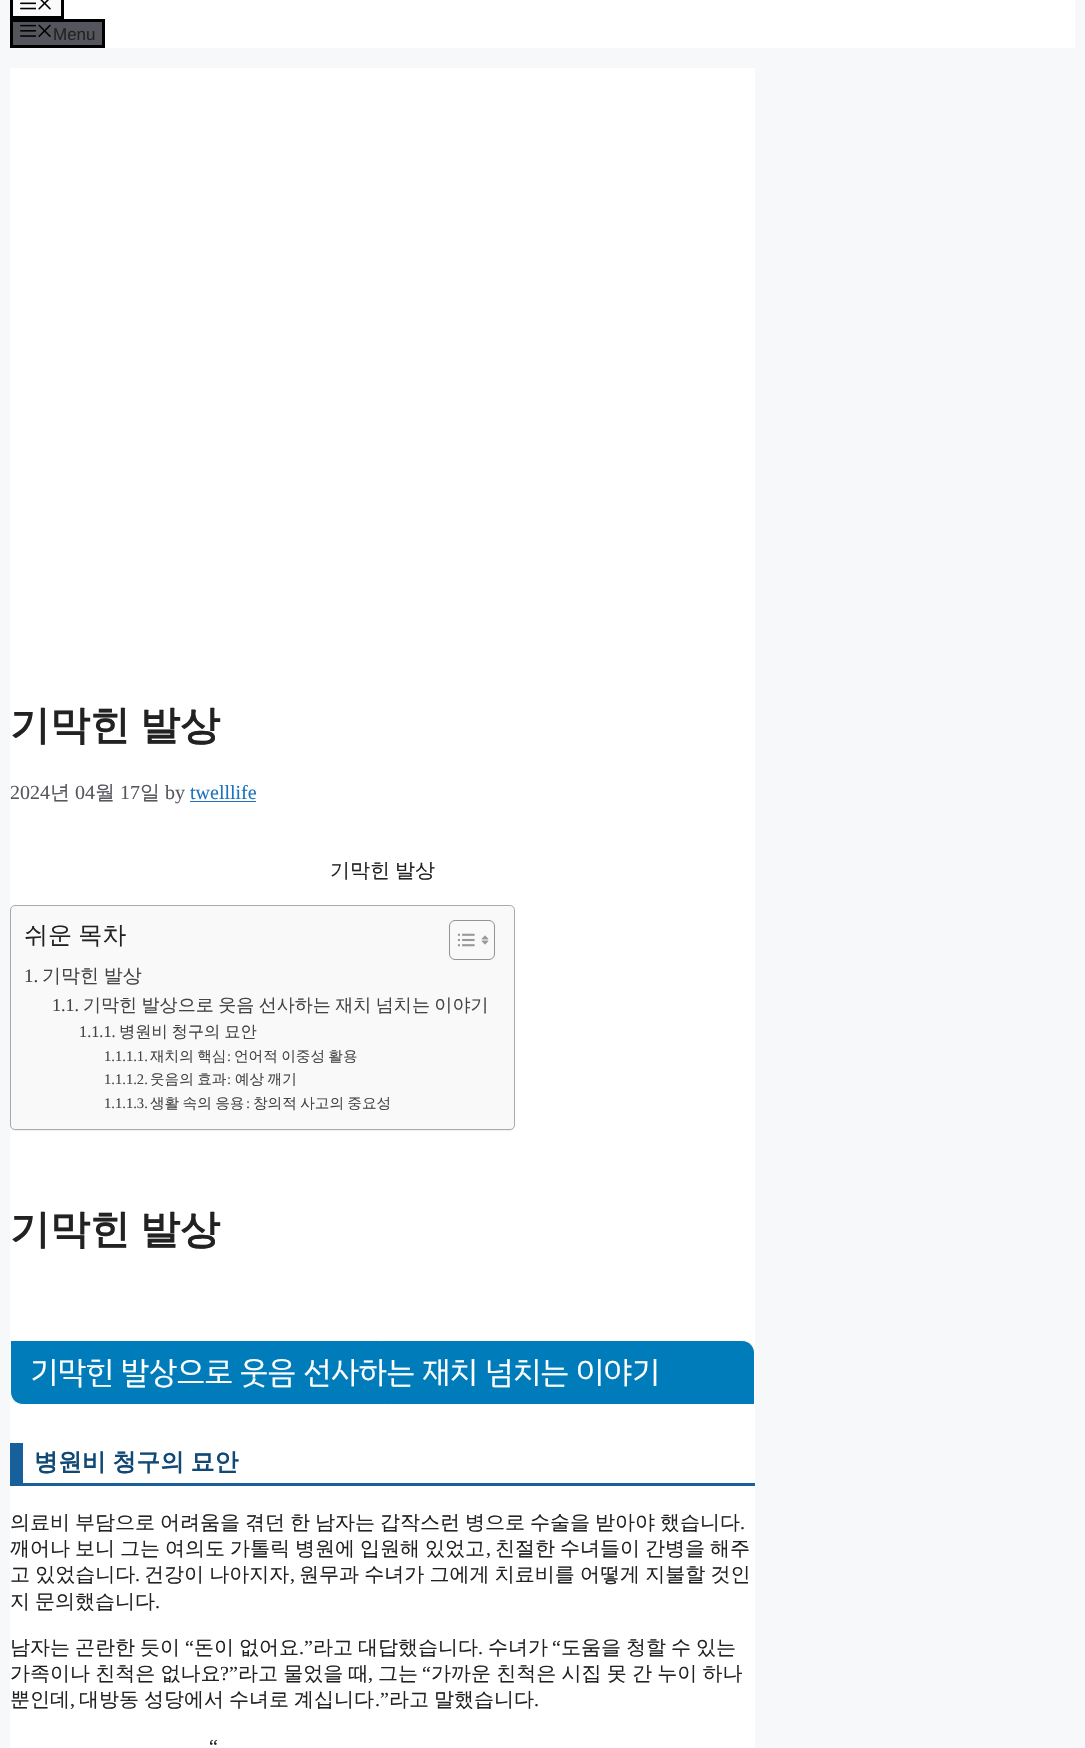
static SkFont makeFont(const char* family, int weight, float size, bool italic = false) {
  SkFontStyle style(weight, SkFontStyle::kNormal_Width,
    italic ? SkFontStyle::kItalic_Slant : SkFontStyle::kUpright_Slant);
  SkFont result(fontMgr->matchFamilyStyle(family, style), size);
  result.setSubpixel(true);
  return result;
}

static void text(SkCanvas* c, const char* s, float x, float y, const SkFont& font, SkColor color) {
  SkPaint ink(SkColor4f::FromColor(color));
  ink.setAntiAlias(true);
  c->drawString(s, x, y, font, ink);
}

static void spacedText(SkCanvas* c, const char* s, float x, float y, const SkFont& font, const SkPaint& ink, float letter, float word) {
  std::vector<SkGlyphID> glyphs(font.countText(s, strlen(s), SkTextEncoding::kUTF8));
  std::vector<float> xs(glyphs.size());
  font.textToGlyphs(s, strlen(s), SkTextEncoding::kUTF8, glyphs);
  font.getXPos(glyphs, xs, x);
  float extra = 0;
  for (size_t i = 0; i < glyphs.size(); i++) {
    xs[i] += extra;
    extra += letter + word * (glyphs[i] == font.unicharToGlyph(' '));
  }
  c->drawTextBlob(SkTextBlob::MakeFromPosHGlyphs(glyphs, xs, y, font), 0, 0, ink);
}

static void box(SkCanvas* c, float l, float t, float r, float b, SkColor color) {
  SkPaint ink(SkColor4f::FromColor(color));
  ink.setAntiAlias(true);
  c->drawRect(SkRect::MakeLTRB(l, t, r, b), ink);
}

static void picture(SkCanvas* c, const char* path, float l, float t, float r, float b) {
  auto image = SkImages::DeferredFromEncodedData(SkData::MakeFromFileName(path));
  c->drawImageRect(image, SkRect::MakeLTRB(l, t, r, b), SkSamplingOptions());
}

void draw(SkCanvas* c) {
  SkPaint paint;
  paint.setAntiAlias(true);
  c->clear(0xfff7f8f9);
  box(c, 64, 0, 1075, 48, 0xffffffff);
  paint.setColor(0xfffafafa);
  c->drawRect(SkRect::MakeLTRB(11.5f, -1.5f, 62.5f, 17.5f), paint);
  paint.setStyle(SkPaint::kStroke_Style);
  paint.setStrokeWidth(3);
  paint.setColor(0xff000000);
  c->drawRect(SkRect::MakeLTRB(11.5f, -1.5f, 62.5f, 17.5f), paint);
  picture(c, "img_01.png", 20, 2, 36, 10);
  picture(c, "img_02.png", 38, 0, 51, 10);
  paint.setStyle(SkPaint::kFill_Style);
  paint.setColor(0xff55555e);
  c->drawRect(SkRect::MakeLTRB(11.5f, 20.5f, 103.5f, 46.5f), paint);
  paint.setStyle(SkPaint::kStroke_Style);
  paint.setColor(0xff000000);
  c->drawRect(SkRect::MakeLTRB(11.5f, 20.5f, 103.5f, 46.5f), paint);
  picture(c, "img_03.png", 20, 24, 36, 37);
  picture(c, "img_04.png", 38, 24, 51, 37);
  SkFont face1 = makeFont("Liberation Sans", 400, 17);
  text(c, "Menu", 53, 40, face1, 0xff222222);
  box(c, 10, 68, 755, 1748, 0xffffffff);
  SkFont face2 = makeFont("WenQuanYi Zen Hei", 700, 40);
  paint.setStyle(SkPaint::kFill_Style);
  paint.setColor(0xff222222);
  spacedText(c, "기막힌 발상", 10, 739, face2, paint, 0, -2);
  SkFont face3 = makeFont("Liberation Serif", 400, 20);
  text(c, "2024", 10, 799, face3, 0xff575760);
  SkFont face4 = makeFont("WenQuanYi Zen Hei", 500, 20);
  text(c, "년", 50, 799, face4, 0xff575760);
  text(c, "04", 75, 799, face3, 0xff575760);
  text(c, "월", 95, 799, face4, 0xff575760);
  text(c, "17", 120, 799, face3, 0xff575760);
  text(c, "일", 140, 799, face4, 0xff575760);
  text(c, "by", 165, 799, face3, 0xff575760);
  box(c, 190, 801, 256, 802, 0xff1e73be);
  text(c, "twelllife", 190, 799, face3, 0xff1e73be);
  spacedText(c, "기막힌 발상", 330, 877, face4, paint, 0, -1);
  paint.setColor(0x0d000000);
  paint.setMaskFilter(SkMaskFilter::MakeBlur(kNormal_SkBlurStyle, 0.5f));
  c->drawRoundRect(SkRect::MakeLTRB(10, 906, 515, 1131), 5, 5, paint);
  paint.setMaskFilter(nullptr);
  paint.setColor(0xfff9f9f9);
  c->drawRoundRect(SkRect::MakeLTRB(10.5f, 905.5f, 514.5f, 1129.5f), 4.5f, 4.5f, paint);
  paint.setStyle(SkPaint::kStroke_Style);
  paint.setStrokeWidth(1);
  paint.setColor(0xffaaaaaa);
  c->drawRoundRect(SkRect::MakeLTRB(10.5f, 905.5f, 514.5f, 1129.5f), 4.5f, 4.5f, paint);
  SkFont face5 = makeFont("WenQuanYi Zen Hei", 500, 24);
  paint.setStyle(SkPaint::kFill_Style);
  paint.setColor(0xff222222);
  spacedText(c, "쉬운 목차", 24, 943, face5, paint, 0, -1);
  paint.setStyle(SkPaint::kStroke_Style);
  paint.setColor(0xff999191);
  c->drawRoundRect(SkRect::MakeLTRB(449.5f, 920.5f, 494.5f, 959.5f), 5.5f, 5.5f, paint);
  picture(c, "img_05.png", 457, 933, 475, 947);
  picture(c, "img_06.png", 481, 935, 489, 945);
  SkFont face6 = makeFont("Liberation Serif", 400, 19);
  text(c, "1.", 24, 982, face6, 0xff444444);
  SkFont face7 = makeFont("WenQuanYi Zen Hei", 500, 19);
  paint.setStyle(SkPaint::kFill_Style);
  paint.setColor(0xff444444);
  spacedText(c, "기막힌 발상", 42, 982, face7, paint, 0, -1);
  SkFont face8 = makeFont("Liberation Serif", 400, 18.05f);
  text(c, "1.1.", 52, 1011, face8, 0xff444444);
  SkFont face9 = makeFont("WenQuanYi Zen Hei", 500, 18.05f);
  spacedText(c, "기막힌 발상으로 웃음 선사하는 재치 넘치는 이야기", 83, 1011, face9, paint, 0, -1);
  SkFont face10 = makeFont("Liberation Serif", 400, 16.25f);
  text(c, "1.1.1.", 79, 1037, face10, 0xff444444);
  SkFont face11 = makeFont("WenQuanYi Zen Hei", 500, 16.25f);
  spacedText(c, "병원비 청구의 묘안", 119, 1037, face11, paint, 0, -1);
  SkFont face12 = makeFont("Liberation Serif", 400, 14.6f);
  text(c, "1.1.1.1.", 104, 1061, face12, 0xff444444);
  SkFont face13 = makeFont("WenQuanYi Zen Hei", 500, 14.6f);
  spacedText(c, "재치의 핵심", 150, 1061, face13, paint, 0, -1);
  text(c, ":", 227, 1061, face12, 0xff444444);
  spacedText(c, "언어적 이중성 활용", 234, 1061, face13, paint, 0, -1);
  text(c, "1.1.1.2.", 104, 1084, face12, 0xff444444);
  spacedText(c, "웃음의 효과", 150, 1084, face13, paint, 0, -1);
  text(c, ":", 227, 1084, face12, 0xff444444);
  spacedText(c, "예상 깨기", 235, 1084, face13, paint, 0, -1);
  text(c, "1.1.1.3.", 104, 1108, face12, 0xff444444);
  spacedText(c, "생활 속의 응용", 150, 1108, face13, paint, 0, -1);
  text(c, ":", 246, 1108, face12, 0xff444444);
  spacedText(c, "창의적 사고의 중요성", 253, 1108, face13, paint, 0, -1);
  paint.setColor(0xff222222);
  spacedText(c, "기막힌 발상", 10, 1243, face2, paint, 0, -2);
  paint.setColor(0xff007cba);
  c->drawPath(SkPathBuilder().moveTo(10.5f, 1340.5f).lineTo(742, 1340.5f).cubicTo(749, 1340.5f, 754.5f, 1346, 754.5f, 1353).lineTo(754.5f, 1404.5f).lineTo(23, 1404.5f).cubicTo(16, 1404.5f, 10.5f, 1399, 10.5f, 1392).close().detach(), paint);
  paint.setStyle(SkPaint::kStroke_Style);
  paint.setColor(0xffffffff);
  c->drawPath(SkPathBuilder().moveTo(10.5f, 1340.5f).lineTo(742, 1340.5f).cubicTo(749, 1340.5f, 754.5f, 1346, 754.5f, 1353).lineTo(754.5f, 1404.5f).lineTo(23, 1404.5f).cubicTo(16, 1404.5f, 10.5f, 1399, 10.5f, 1392).close().detach(), paint);
  SkFont face14 = makeFont("IBM Plex Sans KR", 400, 31.25f);
  text(c, "기막힌 발상으로 웃음 선사하는 재치 넘치는 이야기", 30, 1383, face14, 0xffffffff);
  box(c, 10, 1483, 755, 1486, 0xff18609c);
  box(c, 10, 1443, 23, 1483, 0xff18609c);
  SkFont face15 = makeFont("WenQuanYi Zen Hei", 700, 24);
  paint.setStyle(SkPaint::kFill_Style);
  paint.setColor(0xff124875);
  spacedText(c, "병원비 청구의 묘안", 34, 1470, face15, paint, 0, -1);
  paint.setColor(0xff222222);
  spacedText(c, "의료비 부담으로 어려움을 겪던 한 남자는 갑작스런 병으로 수술을 받아야 했습니다", 10, 1529, face4, paint, 0, -1);
  text(c, ".", 740, 1529, face3, 0xff222222);
  spacedText(c, "깨어나 보니 그는 여의도 가톨릭 병원에 입원해 있었고", 10, 1555, face4, paint, 0, -1);
  text(c, ",", 486, 1555, face3, 0xff222222);
  spacedText(c, "친절한 수녀들이 간병을 해주", 495, 1555, face4, paint, 0, -1);
  spacedText(c, "고 있었습니다", 10, 1581, face4, paint, 0, -0.75f);
  text(c, ".", 135, 1581, face3, 0xff222222);
  spacedText(c, "건강이 나아지자", 144, 1581, face4, paint, 0, -0.75f);
  text(c, ",", 290, 1581, face3, 0xff222222);
  spacedText(c, "원무과 수녀가 그에게 치료비를 어떻게 지불할 것인", 299, 1581, face4, paint, 0, -0.75f);
  spacedText(c, "지 문의했습니다", 10, 1608, face4, paint, 0, -1);
  text(c, ".", 155, 1608, face3, 0xff222222);
  spacedText(c, "남자는 곤란한 듯이", 10, 1654, face4, paint, 0, -1);
  text(c, "“", 185, 1654, face3, 0xff222222);
  spacedText(c, "돈이 없어요", 194, 1654, face4, paint, 0, -1);
  text(c, ".”", 299, 1654, face3, 0xff222222);
  spacedText(c, "라고 대답했습니다", 313, 1654, face4, paint, 0, -1);
  text(c, "수녀가", 488, 1654, face4, 0xff222222);
  text(c, "“", 552, 1654, face3, 0xff222222);
  spacedText(c, "도움을 청할 수 있는", 561, 1654, face4, paint, 0, -1);
  text(c, ".", 478, 1654, face3, 0xff222222);
  spacedText(c, "가족이나 친척은 없나요", 10, 1680, face4, paint, 0, -0.75f);
  text(c, "?”", 220, 1680, face3, 0xff222222);
  spacedText(c, "라고 물었을 때", 238, 1680, face4, paint, 0, -0.75f);
  text(c, "그는", 378, 1680, face4, 0xff222222);
  text(c, "“", 422, 1680, face3, 0xff222222);
  spacedText(c, "가까운 친척은 시집 못 간 누이 하나", 431, 1680, face4, paint, 0, -0.75f);
  text(c, ",", 368, 1680, face3, 0xff222222);
  text(c, "뿐인데", 10, 1706, face4, 0xff222222);
  text(c, ",", 70, 1706, face3, 0xff222222);
  spacedText(c, "대방동 성당에서 수녀로 계십니다", 79, 1706, face4, paint, 0, -1);
  text(c, ".”", 375, 1706, face3, 0xff222222);
  spacedText(c, "라고 말했습니다", 389, 1706, face4, paint, 0, -1);
  text(c, ".", 534, 1706, face3, 0xff222222);
  text(c, "“", 209, 1753, face3, 0xff222222);
}
